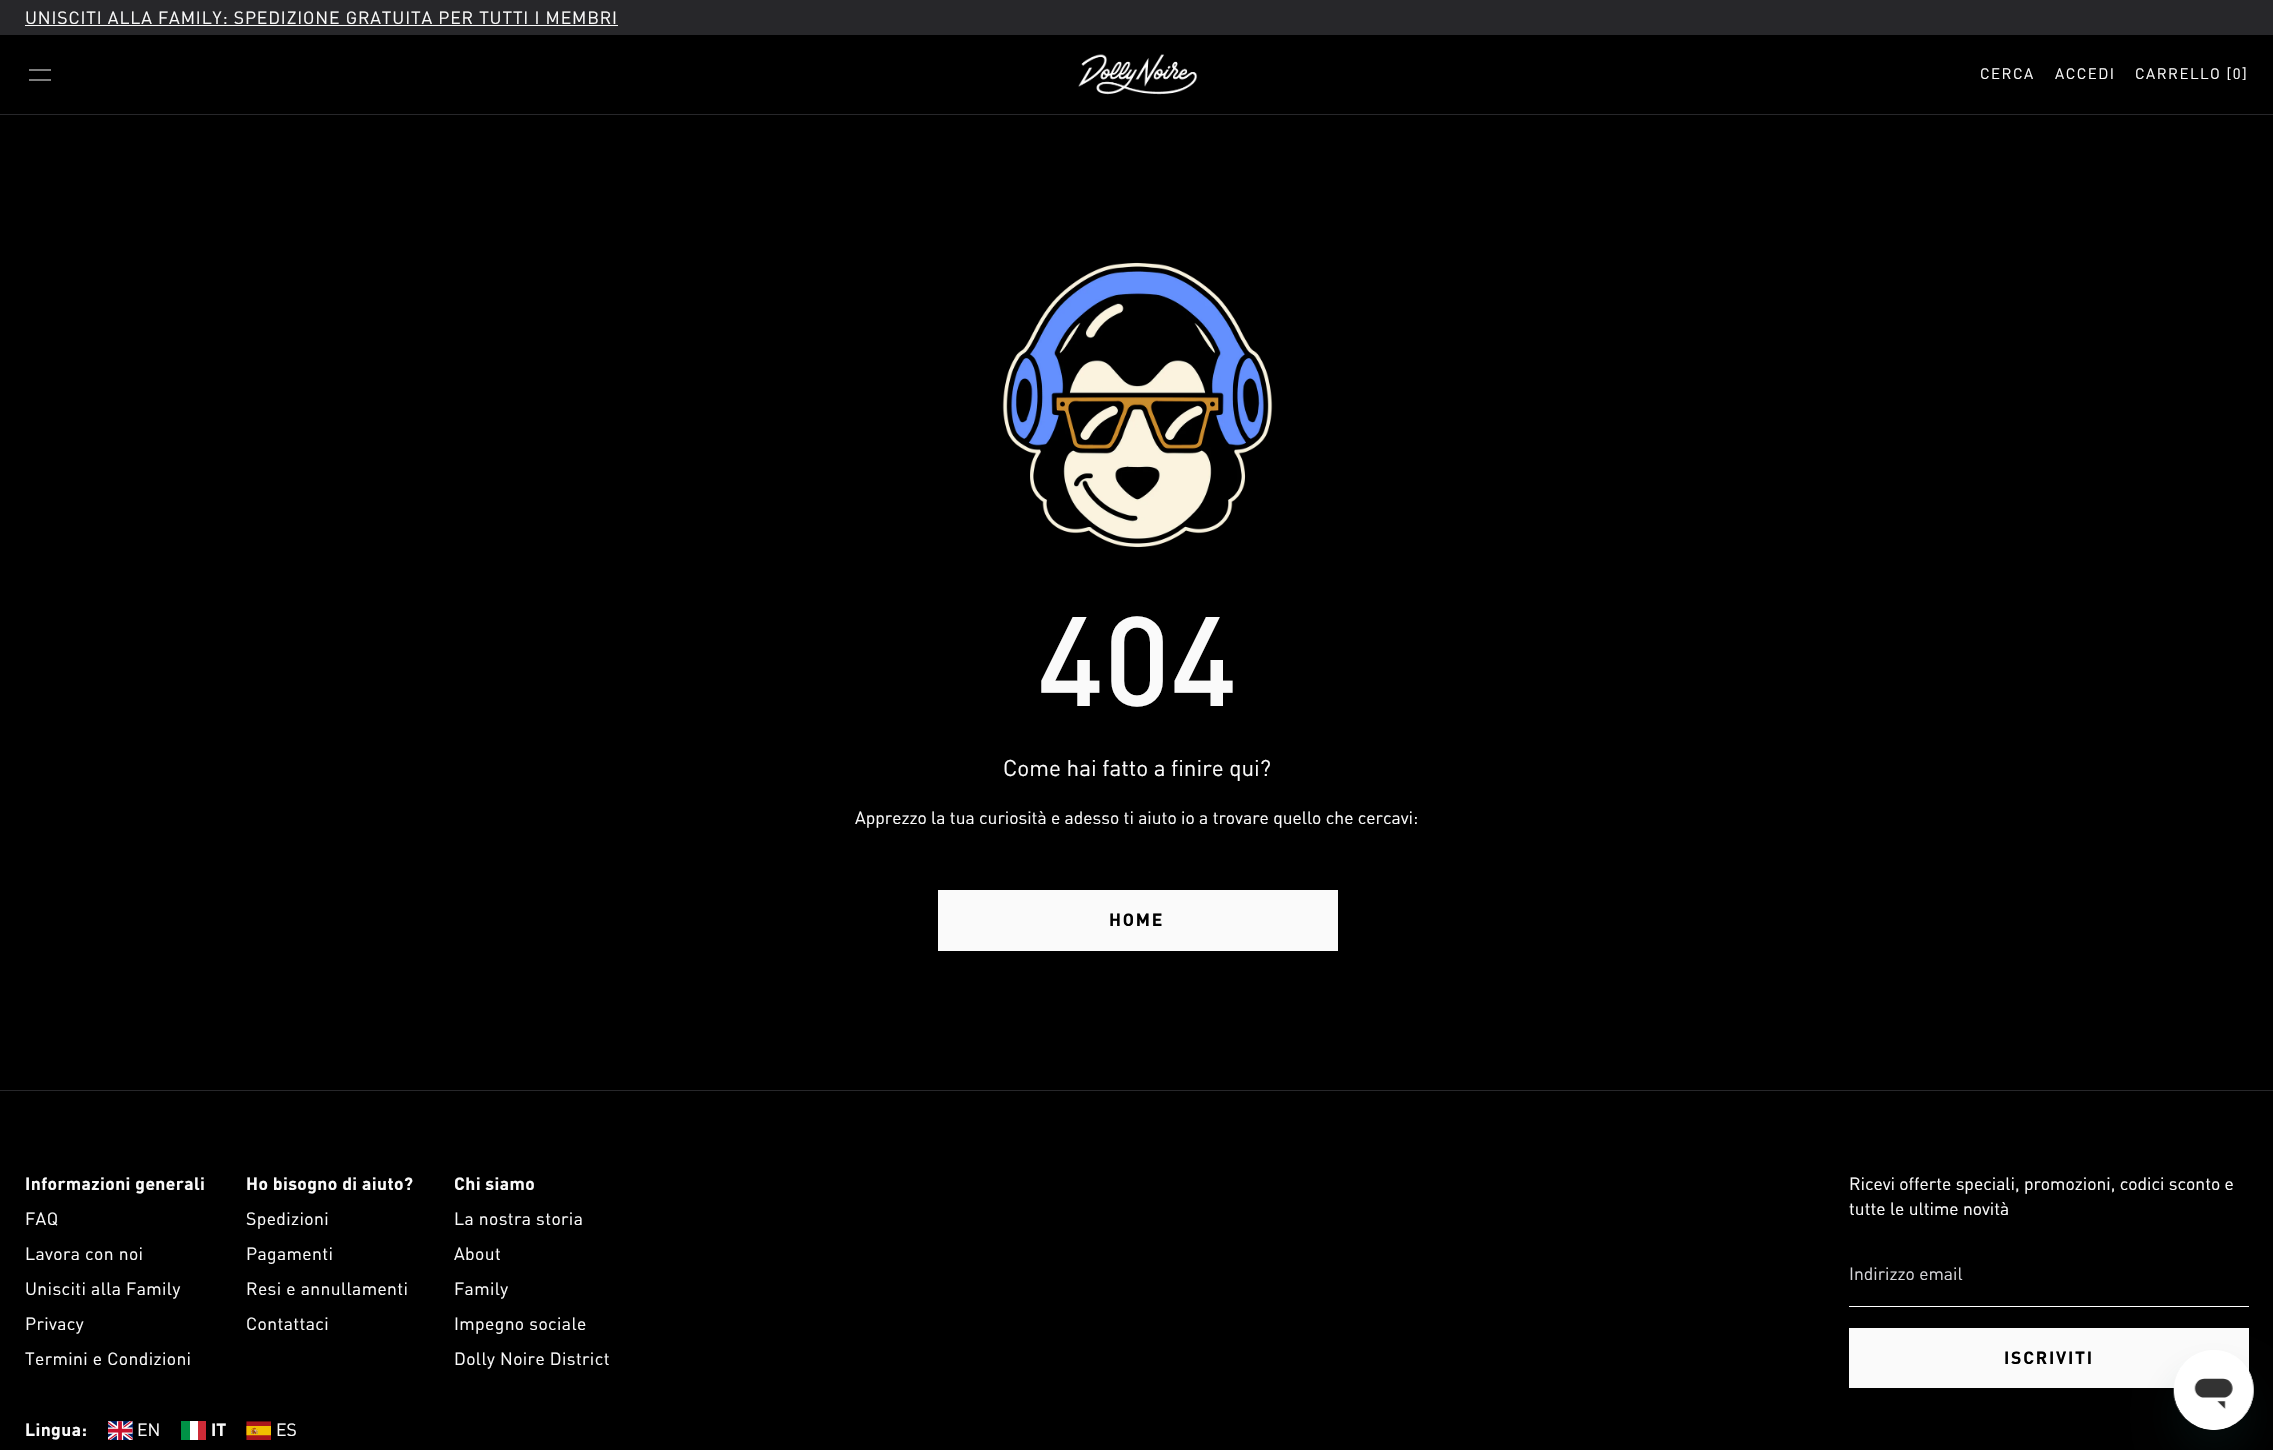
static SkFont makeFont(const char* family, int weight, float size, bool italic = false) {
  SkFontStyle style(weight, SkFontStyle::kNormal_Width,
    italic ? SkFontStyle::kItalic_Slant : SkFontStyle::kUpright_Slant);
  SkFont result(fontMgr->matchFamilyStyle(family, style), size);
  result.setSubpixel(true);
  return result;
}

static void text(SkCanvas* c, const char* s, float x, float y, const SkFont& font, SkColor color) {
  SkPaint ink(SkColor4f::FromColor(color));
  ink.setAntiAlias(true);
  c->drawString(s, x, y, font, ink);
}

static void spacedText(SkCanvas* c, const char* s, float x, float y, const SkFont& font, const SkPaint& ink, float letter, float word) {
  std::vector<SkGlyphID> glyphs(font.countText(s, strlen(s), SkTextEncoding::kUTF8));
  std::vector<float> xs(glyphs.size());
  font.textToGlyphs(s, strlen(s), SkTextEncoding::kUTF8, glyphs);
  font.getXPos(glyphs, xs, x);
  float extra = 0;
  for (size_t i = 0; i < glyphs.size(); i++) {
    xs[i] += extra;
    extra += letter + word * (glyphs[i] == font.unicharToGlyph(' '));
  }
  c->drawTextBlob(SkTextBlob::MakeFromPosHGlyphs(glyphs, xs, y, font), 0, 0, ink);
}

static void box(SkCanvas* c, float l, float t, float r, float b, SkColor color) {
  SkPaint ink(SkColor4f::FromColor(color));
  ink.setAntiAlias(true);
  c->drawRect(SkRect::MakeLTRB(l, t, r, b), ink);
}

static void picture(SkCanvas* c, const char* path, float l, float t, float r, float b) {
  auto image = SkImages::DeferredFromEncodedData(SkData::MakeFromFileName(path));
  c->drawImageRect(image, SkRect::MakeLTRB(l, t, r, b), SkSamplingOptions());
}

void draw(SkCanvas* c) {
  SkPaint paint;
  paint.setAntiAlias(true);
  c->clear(0xff000000);
  box(c, 0, 0, 2273, 35, 0xff27272a);
  SkFont face1 = makeFont("DIN", 400, 17.5f);
  paint.setColor(0xfffafafa);
  spacedText(c, "UNISCITI ALLA FAMILY: SPEDIZIONE GRATUITA PER TUTTI I MEMBRI", 25, 24, face1, paint, 0.88f, 0);
  box(c, 25, 25, 618, 26, 0xfffafafa);
  box(c, 0, 114, 2273, 115, 0xff27272a);
  paint.setStyle(SkPaint::kStroke_Style);
  paint.setStrokeWidth(1.2f);
  c->drawPath(SkPathBuilder().moveTo(29, 70).lineTo(51, 70).moveTo(29, 80).lineTo(51, 80).detach(), paint);
  picture(c, "img_01.png", 1078, 54, 1198, 95);
  SkFont face2 = makeFont("DIN", 400, 15);
  paint.setStyle(SkPaint::kFill_Style);
  spacedText(c, "CERCA", 1980, 79, face2, paint, 1.5f, 0);
  spacedText(c, "ACCEDI", 2055, 79, face2, paint, 1.5f, 0);
  spacedText(c, "CARRELLO [0]", 2135, 79, face2, paint, 1.5f, 0);
  picture(c, "img_02.png", 1002, 262, 1273, 548);
  SkFont face3 = makeFont("DIN", 500, 125);
  text(c, "404", 1037, 706, face3, 0xfffafafa);
  SkFont face4 = makeFont("DIN", 400, 22.5f);
  text(c, "Come hai fatto a finire qui?", 1003, 776, face4, 0xfffafafa);
  text(c, "Apprezzo la tua curiosità e adesso ti aiuto io a trovare quello che cercavi:", 855, 824, face1, 0xfffafafa);
  box(c, 938, 890, 1338, 951, 0xfffafafa);
  SkFont face5 = makeFont("DIN", 700, 17.5f);
  paint.setColor(0xff000000);
  spacedText(c, "HOME", 1109, 926, face5, paint, 1.75f, 0);
  box(c, 0, 1090, 2273, 1091, 0xff27272a);
  paint.setColor(0xfffafafa);
  spacedText(c, "Informazioni generali", 25, 1190, face5, paint, 0.4f, 0);
  spacedText(c, "FAQ", 25, 1225, face1, paint, 0.4f, 0);
  spacedText(c, "Lavora con noi", 25, 1260, face1, paint, 0.4f, 0);
  spacedText(c, "Unisciti alla Family", 25, 1295, face1, paint, 0.4f, 0);
  spacedText(c, "Privacy", 25, 1330, face1, paint, 0.4f, 0);
  spacedText(c, "Termini e Condizioni", 25, 1365, face1, paint, 0.4f, 0);
  spacedText(c, "Ho bisogno di aiuto?", 246, 1190, face5, paint, 0.4f, 0);
  spacedText(c, "Spedizioni", 246, 1225, face1, paint, 0.4f, 0);
  spacedText(c, "Pagamenti", 246, 1260, face1, paint, 0.4f, 0);
  spacedText(c, "Resi e annullamenti", 246, 1295, face1, paint, 0.4f, 0);
  spacedText(c, "Contattaci", 246, 1330, face1, paint, 0.4f, 0);
  spacedText(c, "Chi siamo", 454, 1190, face5, paint, 0.4f, 0);
  spacedText(c, "La nostra storia", 454, 1225, face1, paint, 0.4f, 0);
  spacedText(c, "About", 454, 1260, face1, paint, 0.4f, 0);
  spacedText(c, "Family", 454, 1295, face1, paint, 0.4f, 0);
  spacedText(c, "Impegno sociale", 454, 1330, face1, paint, 0.4f, 0);
  spacedText(c, "Dolly Noire District", 454, 1365, face1, paint, 0.4f, 0);
  text(c, "Ricevi offerte speciali, promozioni, codici sconto e", 1849, 1190, face1, 0xfffafafa);
  text(c, "tutte le ultime novità", 1849, 1215, face1, 0xfffafafa);
  box(c, 1849, 1306, 2249, 1307, 0xffffffff);
  text(c, "Indirizzo email", 1849, 1280, face1, 0xffd4d4d8);
  box(c, 1849, 1328, 2249, 1388, 0xfffafafa);
  paint.setColor(0xff000000);
  spacedText(c, "ISCRIVITI", 2004, 1364, face5, paint, 1.75f, 0);
  paint.setColor(0xfffafafa);
  spacedText(c, "Lingua:", 25, 1436, face5, paint, 0.4f, 0);
  picture(c, "img_03.png", 108, 1421, 133, 1440);
  text(c, "EN", 137, 1436, face1, 0xfffafafa);
  box(c, 190, 1421, 198, 1440, 0xffffffff);
  box(c, 181, 1421, 190, 1440, 0xff009246);
  box(c, 198, 1421, 206, 1440, 0xffce2b37);
  text(c, "IT", 211, 1436, face5, 0xfffafafa);
  picture(c, "img_04.png", 246, 1421, 271, 1440);
  text(c, "ES", 276, 1436, face1, 0xfffafafa);
  paint.setColor(0x2617494d);
  paint.setMaskFilter(SkMaskFilter::MakeBlur(kNormal_SkBlurStyle, 19));
  c->drawRoundRect(SkRect::MakeLTRB(2174, 1375, 2254, 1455), 40, 40, paint);
  paint.setMaskFilter(nullptr);
  picture(c, "img_05.png", 2173, 1350, 2254, 1430);
}
